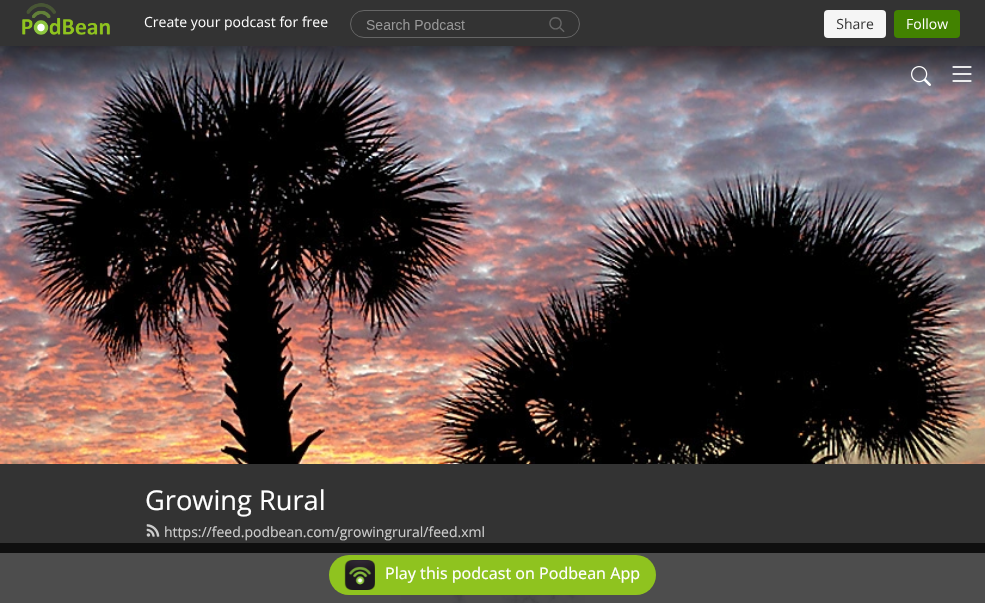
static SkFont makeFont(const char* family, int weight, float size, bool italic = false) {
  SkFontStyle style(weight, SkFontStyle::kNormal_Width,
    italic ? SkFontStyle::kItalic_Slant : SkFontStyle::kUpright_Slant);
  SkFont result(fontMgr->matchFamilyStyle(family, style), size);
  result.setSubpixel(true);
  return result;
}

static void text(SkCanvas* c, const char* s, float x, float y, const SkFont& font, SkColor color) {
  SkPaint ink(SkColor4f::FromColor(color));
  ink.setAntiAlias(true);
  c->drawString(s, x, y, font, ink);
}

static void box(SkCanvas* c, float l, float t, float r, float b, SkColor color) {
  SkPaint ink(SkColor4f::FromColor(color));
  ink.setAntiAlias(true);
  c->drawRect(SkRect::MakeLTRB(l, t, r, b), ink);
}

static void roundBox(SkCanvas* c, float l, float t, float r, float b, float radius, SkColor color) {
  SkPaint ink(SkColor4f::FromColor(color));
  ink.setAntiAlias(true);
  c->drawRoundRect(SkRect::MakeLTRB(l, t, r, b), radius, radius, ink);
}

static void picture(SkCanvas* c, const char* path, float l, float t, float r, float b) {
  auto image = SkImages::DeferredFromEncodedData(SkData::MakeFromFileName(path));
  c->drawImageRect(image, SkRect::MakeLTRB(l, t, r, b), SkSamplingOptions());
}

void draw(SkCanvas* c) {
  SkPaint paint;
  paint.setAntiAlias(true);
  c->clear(0xff4d4d4d);
  box(c, 0, 0, 985, 46, 0xff333333);
  picture(c, "img_01.png", 22, 3, 960, 38);
  picture(c, "img_04.png", 0, 46, 985, 464);
  picture(c, "img_02.png", 911, 66, 931, 86);
  picture(c, "img_03.png", 952, 66, 972, 82);
  box(c, 0, 464, 985, 543, 0xff333333);
  box(c, 0, 543, 985, 553, 0xff0f0f0f);
  SkFont face1 = makeFont("Open Sans", 400, 27.25f);
  text(c, "Growing Rural", 145, 510, face1, 0xffffffff);
  picture(c, "img_05.png", 146, 524, 160, 537);
  SkFont face2 = makeFont("Open Sans", 400, 14);
  text(c, "https://feed.podbean.com/growingrural/feed.xml", 164, 537, face2, 0xffcccccc);
  picture(c, "img_06.png", 401, 595, 585, 603);
  roundBox(c, 329, 555, 656, 595, 20, 0xff8fc31f);
  picture(c, "img_07.png", 344, 560, 375, 590);
  SkFont face3 = makeFont("Noto Sans", 400, 16);
  text(c, "Play this podcast on Podbean App", 385, 579, face3, 0xffffffff);
}
